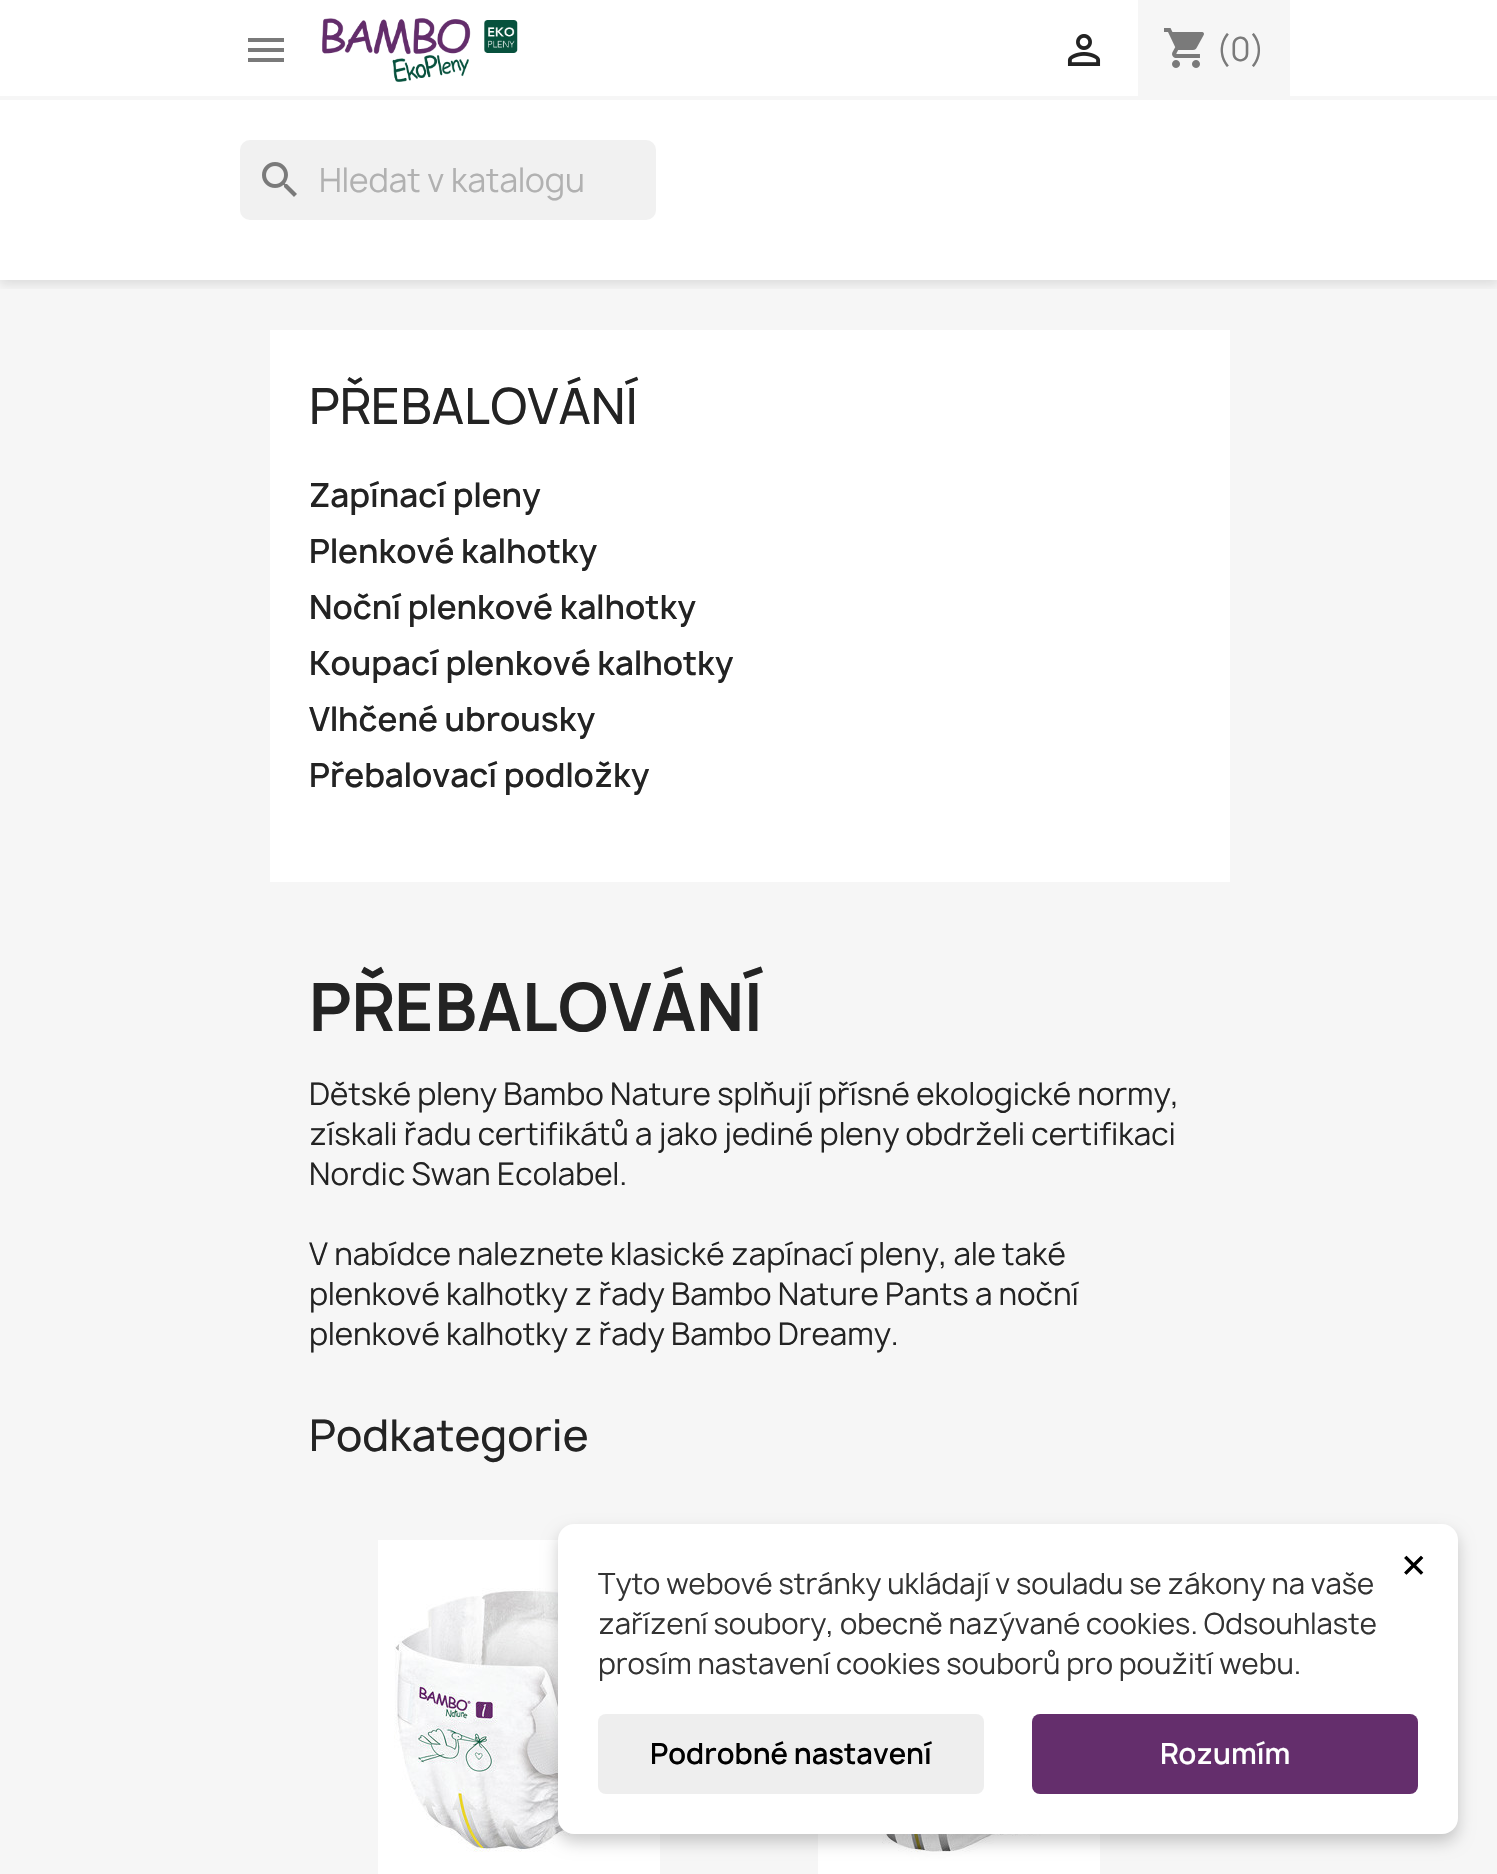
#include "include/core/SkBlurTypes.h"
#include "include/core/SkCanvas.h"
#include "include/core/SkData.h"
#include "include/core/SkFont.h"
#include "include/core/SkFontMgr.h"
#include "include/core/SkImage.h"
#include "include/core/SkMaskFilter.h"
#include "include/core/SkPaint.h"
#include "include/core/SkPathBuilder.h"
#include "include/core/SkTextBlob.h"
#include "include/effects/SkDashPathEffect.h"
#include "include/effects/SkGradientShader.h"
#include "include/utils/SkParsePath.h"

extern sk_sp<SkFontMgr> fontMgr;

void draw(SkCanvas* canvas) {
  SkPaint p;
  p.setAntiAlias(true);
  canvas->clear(SK_ColorWHITE);
  p.setColor(SkColorSetRGB(246, 246, 246));
  canvas->drawRect(SkRect::MakeLTRB(0, 280, 1497, 1874), p);
  canvas->save();
  canvas->clipRect(SkRect::MakeLTRB(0, 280, 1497, 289));
  p.setColor(SkColorSetARGB(28, 0, 0, 0));
  p.setMaskFilter(SkMaskFilter::MakeBlur(kNormal_SkBlurStyle, 5));
  canvas->drawRect(SkRect::MakeLTRB(0, 4, 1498, 284), p);
  p.setMaskFilter(nullptr);
  canvas->restore();
  p.setColor(SkColorSetRGB(246, 246, 246));
  canvas->drawRect(SkRect::MakeLTRB(0, 96, 1497, 100), p);
  p.setColor(SkColorSetRGB(122, 122, 122));
  canvas->drawPath(SkPathBuilder().moveTo(248, 38).lineTo(284, 38).lineTo(284, 42).lineTo(248, 42).close().moveTo(248, 52).lineTo(248, 48).lineTo(284, 48).lineTo(284, 52).close().moveTo(248, 62).lineTo(248, 58).lineTo(284, 58).lineTo(284, 62).close().detach(), p);
  canvas->drawImageRect(SkImages::DeferredFromEncodedData(SkData::MakeFromFileName("images/1.png")), SkRect::MakeLTRB(322, 18, 518, 82), SkSamplingOptions());
  canvas->drawImageRect(SkImages::DeferredFromEncodedData(SkData::MakeFromFileName("images/2.png")), SkRect::MakeLTRB(1067, 34, 1101, 66), SkSamplingOptions());
  p.setColor(SkColorSetRGB(246, 246, 246));
  canvas->drawRect(SkRect::MakeLTRB(1138, 0, 1290, 96), p);
  canvas->drawImageRect(SkImages::DeferredFromEncodedData(SkData::MakeFromFileName("images/3.png")), SkRect::MakeLTRB(1164, 28, 1204, 68), SkSamplingOptions());
  p.setColor(SkColorSetRGB(241, 241, 241));
  canvas->drawRoundRect(SkRect::MakeLTRB(240, 140, 656, 220), 10, 10, p);
  canvas->drawImageRect(SkImages::DeferredFromEncodedData(SkData::MakeFromFileName("images/4.png")), SkRect::MakeLTRB(262, 162, 297, 197), SkSamplingOptions());
  p.setColor(SK_ColorWHITE);
  canvas->drawRect(SkRect::MakeLTRB(270, 330, 1230, 882), p);
  canvas->drawImageRect(SkImages::DeferredFromEncodedData(SkData::MakeFromFileName("images/5.png")), SkRect::MakeLTRB(378, 1540, 660, 1874), SkSamplingOptions());
  canvas->drawImageRect(SkImages::DeferredFromEncodedData(SkData::MakeFromFileName("images/6.png")), SkRect::MakeLTRB(818, 1834, 1100, 1874), SkSamplingOptions());
  p.setColor(SkColorSetARGB(51, 0, 0, 0));
  p.setMaskFilter(SkMaskFilter::MakeBlur(kNormal_SkBlurStyle, 8));
  canvas->drawRoundRect(SkRect::MakeLTRB(558, 1532, 1458, 1842), 16, 16, p);
  p.setMaskFilter(nullptr);
  p.setColor(SK_ColorWHITE);
  canvas->drawRoundRect(SkRect::MakeLTRB(558, 1524, 1458, 1834), 16, 16, p);
  p.setColor(SkColorSetRGB(238, 238, 238));
  canvas->drawRoundRect(SkRect::MakeLTRB(598, 1714, 984, 1794), 8, 8, p);
  p.setColor(SkColorSetRGB(100, 46, 108));
  canvas->drawRoundRect(SkRect::MakeLTRB(1032, 1714, 1418, 1794), 8, 8, p);
  SkFont font1(fontMgr->matchFamilyStyle("Manrope", SkFontStyle::Normal()), 32);
  font1.setSubpixel(true);
  p.setColor(SkColorSetRGB(122, 122, 122));
  canvas->drawString("(0)", 1216, 61, font1, p);
  p.setColor(SkColorSetRGB(177, 177, 177));
  canvas->drawString("Hledat v katalogu", 319, 192, font1, p);
  SkFont font2(fontMgr->matchFamilyStyle("Manrope", SkFontStyle(500, SkFontStyle::kNormal_Width, SkFontStyle::kUpright_Slant)), 48);
  font2.setSubpixel(true);
  p.setColor(SkColorSetRGB(35, 35, 35));
  canvas->drawString("PŘEBALOVÁNÍ", 309, 424, font2, p);
  SkFont font3(fontMgr->matchFamilyStyle("Manrope", SkFontStyle(600, SkFontStyle::kNormal_Width, SkFontStyle::kUpright_Slant)), 32);
  font3.setSubpixel(true);
  canvas->drawString("Zapínací pleny", 309, 507, font3, p);
  canvas->drawString("Plenkové kalhotky", 309, 563, font3, p);
  canvas->drawString("Noční plenkové kalhotky", 309, 619, font3, p);
  canvas->drawString("Koupací plenkové kalhotky", 309, 675, font3, p);
  canvas->drawString("Vlhčené ubrousky", 309, 731, font3, p);
  canvas->drawString("Přebalovací podložky", 309, 787, font3, p);
  SkFont font4(fontMgr->matchFamilyStyle("Manrope", SkFontStyle::Bold()), 64);
  font4.setSubpixel(true);
  canvas->drawString("PŘEBALOVÁNÍ", 309, 1031, font4, p);
  SkFont font5(fontMgr->matchFamilyStyle("Manrope", SkFontStyle::Normal()), 30);
  font5.setSubpixel(true);
  canvas->drawString("Dětské pleny Bambo Nature splňují přísné ekologické normy,", 309, 1105, font5, p);
  canvas->drawString("získali řadu certifikátů a jako jediné pleny obdrželi certifikaci", 309, 1145, font5, p);
  canvas->drawString("Nordic Swan Ecolabel.", 309, 1185, font5, p);
  canvas->drawString("V nabídce naleznete klasické zapínací pleny, ale také", 309, 1265, font5, p);
  canvas->drawString("plenkové kalhotky z řady Bambo Nature Pants a noční", 309, 1305, font5, p);
  canvas->drawString("plenkové kalhotky z řady Bambo Dreamy.", 309, 1345, font5, p);
  SkFont font6(fontMgr->matchFamilyStyle("Manrope", SkFontStyle(500, SkFontStyle::kNormal_Width, SkFontStyle::kUpright_Slant)), 42);
  font6.setSubpixel(true);
  canvas->drawString("Podkategorie", 309, 1451, font6, p);
  SkFont font7(fontMgr->matchFamilyStyle("Manrope", SkFontStyle::Normal()), 50);
  font7.setSubpixel(true);
  p.setColor(SK_ColorBLACK);
  canvas->drawString("×", 1401, 1584, font7, p);
  SkFont font8(fontMgr->matchFamilyStyle("Manrope", SkFontStyle::Normal()), 28);
  font8.setSubpixel(true);
  p.setColor(SkColorSetRGB(51, 51, 51));
  canvas->drawString("Tyto webové stránky ukládají v souladu se zákony na vaše", 598, 1594, font8, p);
  canvas->drawString("zařízení soubory, obecně nazývané cookies. Odsouhlaste", 598, 1634, font8, p);
  canvas->drawString("prosím nastavení cookies souborů pro použití webu.", 598, 1674, font8, p);
  SkFont font9(fontMgr->matchFamilyStyle("Manrope", SkFontStyle(600, SkFontStyle::kNormal_Width, SkFontStyle::kUpright_Slant)), 28);
  font9.setSubpixel(true);
  p.setColor(SK_ColorBLACK);
  canvas->drawString("Podrobné nastavení", 650, 1764, font9, p);
  p.setColor(SK_ColorWHITE);
  canvas->drawString("Rozumím", 1160, 1764, font9, p);
}
